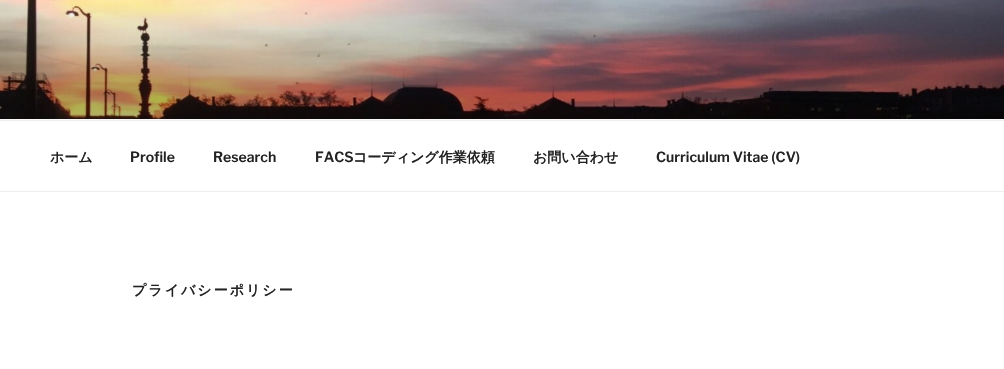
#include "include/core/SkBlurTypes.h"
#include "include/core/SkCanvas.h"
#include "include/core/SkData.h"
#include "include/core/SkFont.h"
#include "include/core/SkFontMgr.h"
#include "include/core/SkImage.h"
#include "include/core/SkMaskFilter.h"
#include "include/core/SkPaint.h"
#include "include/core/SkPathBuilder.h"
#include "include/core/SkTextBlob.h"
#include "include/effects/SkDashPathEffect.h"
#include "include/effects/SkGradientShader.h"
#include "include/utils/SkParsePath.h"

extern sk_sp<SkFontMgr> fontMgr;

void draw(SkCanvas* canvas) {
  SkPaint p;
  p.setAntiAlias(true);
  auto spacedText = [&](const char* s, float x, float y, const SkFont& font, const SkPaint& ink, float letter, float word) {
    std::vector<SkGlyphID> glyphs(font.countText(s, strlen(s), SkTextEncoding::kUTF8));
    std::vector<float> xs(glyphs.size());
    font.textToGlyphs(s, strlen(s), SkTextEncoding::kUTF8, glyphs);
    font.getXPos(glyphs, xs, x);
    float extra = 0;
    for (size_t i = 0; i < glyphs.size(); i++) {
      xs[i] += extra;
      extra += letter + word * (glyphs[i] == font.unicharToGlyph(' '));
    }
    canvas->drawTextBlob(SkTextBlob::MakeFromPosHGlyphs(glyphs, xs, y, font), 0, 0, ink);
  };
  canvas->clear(SK_ColorWHITE);
  p.setColor(SkColorSetRGB(250, 250, 250));
  canvas->drawRect(SkRect::MakeLTRB(0, 119, 1004, 120), p);
  canvas->drawImageRect(SkImages::DeferredFromEncodedData(SkData::MakeFromFileName("images/1.png")), SkRect::MakeLTRB(0, 0, 1004, 119), SkSamplingOptions());
  p.setColor(SkColorSetRGB(238, 238, 238));
  canvas->drawRect(SkRect::MakeLTRB(0, 120, 1004, 121), p);
  canvas->drawRect(SkRect::MakeLTRB(0, 191, 1004, 192), p);
  SkFont font1(fontMgr->matchFamilyStyle("WenQuanYi Zen Hei", SkFontStyle::Bold()), 14);
  font1.setSubpixel(true);
  p.setColor(SkColorSetRGB(34, 34, 34));
  canvas->drawString("ホーム", 50, 162, font1, p);
  SkFont font2(fontMgr->matchFamilyStyle("Libre Franklin", SkFontStyle(100, SkFontStyle::kNormal_Width, SkFontStyle::kUpright_Slant)), 14);
  font2.setSubpixel(true);
  canvas->drawString("Profile", 130, 162, font2, p);
  canvas->drawString("Research", 213, 162, font2, p);
  canvas->drawString("FACS", 315, 162, font2, p);
  canvas->drawString("コーディング作業依頼", 353, 162, font1, p);
  canvas->drawString("お問い合わせ", 533, 162, font1, p);
  canvas->drawString("Curriculum Vitae (CV)", 656, 162, font2, p);
  spacedText("プライバシーポリシー", 132, 295, font1, p, 2, 0);
}
